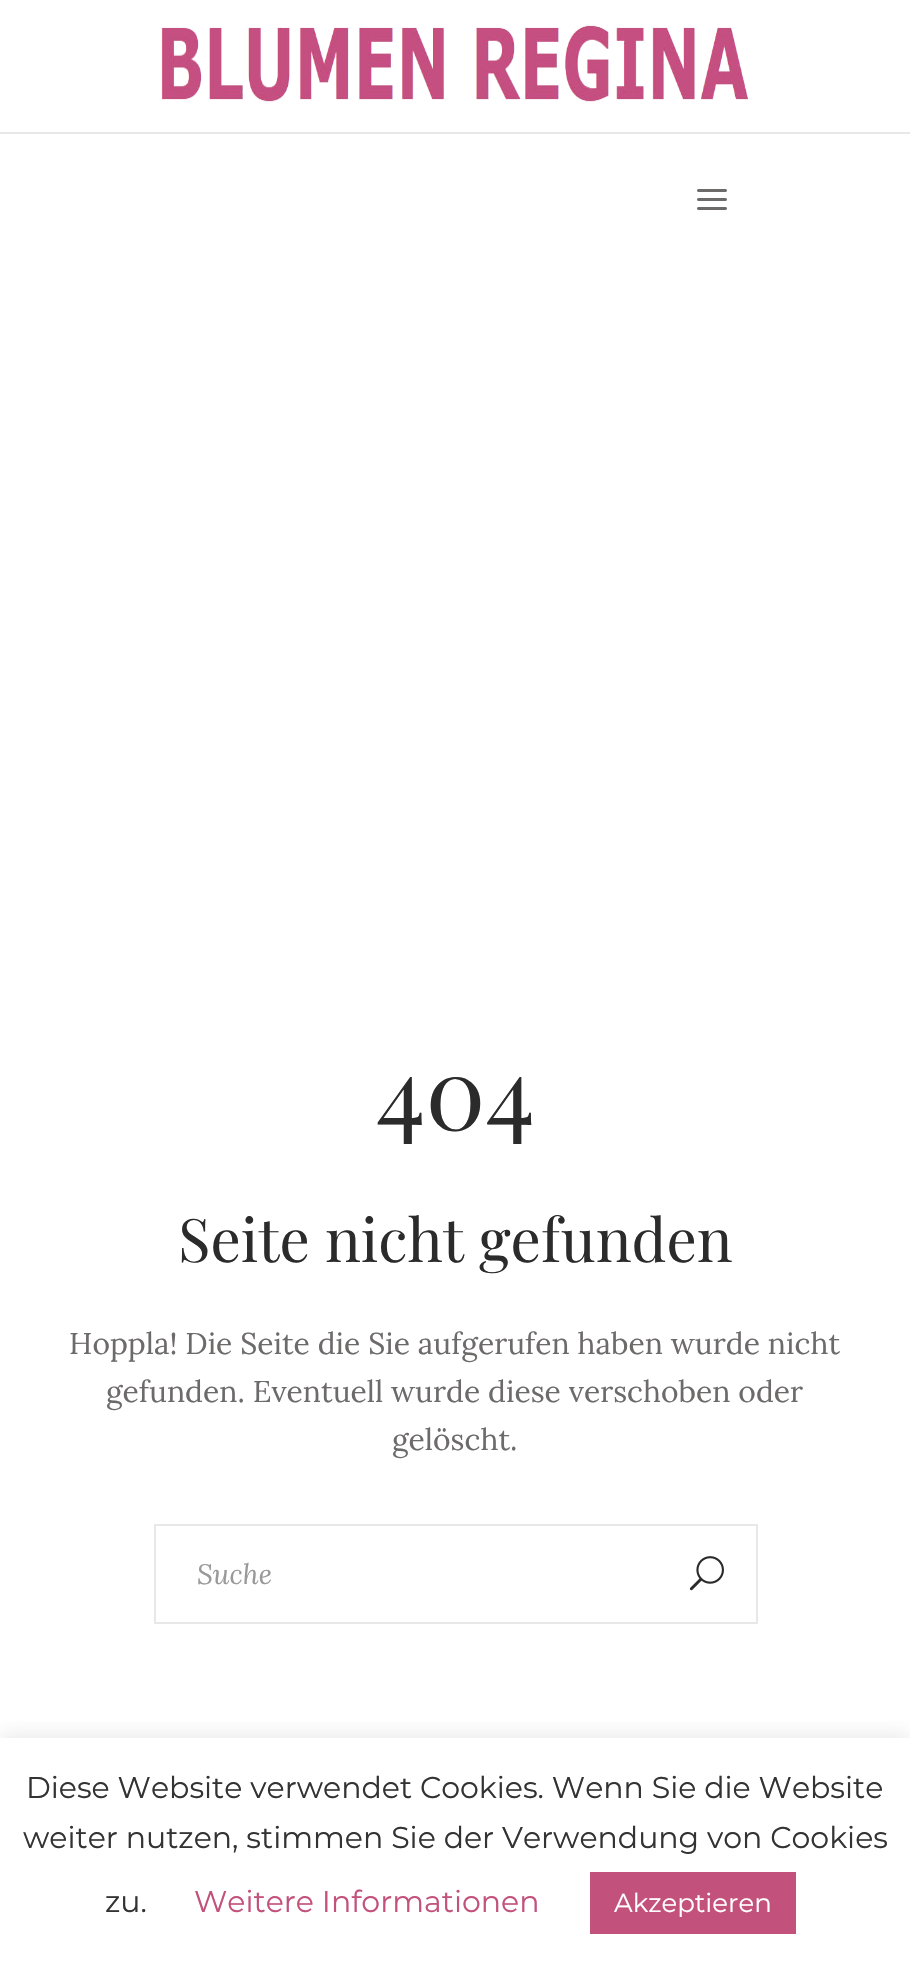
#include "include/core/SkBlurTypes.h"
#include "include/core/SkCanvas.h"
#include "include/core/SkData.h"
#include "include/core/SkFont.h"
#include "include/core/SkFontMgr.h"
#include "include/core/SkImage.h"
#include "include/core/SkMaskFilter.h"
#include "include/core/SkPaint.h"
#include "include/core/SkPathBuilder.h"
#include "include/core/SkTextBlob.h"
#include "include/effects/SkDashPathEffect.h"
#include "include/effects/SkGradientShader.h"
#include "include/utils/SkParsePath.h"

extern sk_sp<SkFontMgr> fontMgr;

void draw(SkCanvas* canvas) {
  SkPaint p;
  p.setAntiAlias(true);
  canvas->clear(SK_ColorWHITE);
  p.setColor(SkColorSetRGB(232, 232, 232));
  canvas->drawRect(SkRect::MakeLTRB(0, 132, 910, 134), p);
  canvas->drawImageRect(SkImages::DeferredFromEncodedData(SkData::MakeFromFileName("images/1.png")), SkRect::MakeLTRB(161, 25, 748, 102), SkSamplingOptions());
  canvas->drawImageRect(SkImages::DeferredFromEncodedData(SkData::MakeFromFileName("images/2.png")), SkRect::MakeLTRB(697, 189, 727, 210), SkSamplingOptions());
  p.setStyle(SkPaint::kStroke_Style);
  p.setStrokeWidth(2);
  canvas->drawRect(SkRect::MakeLTRB(155, 1525, 757, 1623), p);
  canvas->drawImageRect(SkImages::DeferredFromEncodedData(SkData::MakeFromFileName("images/3.png")), SkRect::MakeLTRB(689, 1556, 724, 1591), SkSamplingOptions());
  canvas->save();
  canvas->clipRect(SkRect::MakeLTRB(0, 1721, 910, 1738));
  p.setStyle(SkPaint::kFill_Style);
  p.setColor(SkColorSetARGB(77, 172, 171, 171));
  p.setMaskFilter(SkMaskFilter::MakeBlur(kNormal_SkBlurStyle, 10));
  canvas->drawRect(SkRect::MakeLTRB(0, 1736, 910, 1966), p);
  p.setMaskFilter(nullptr);
  canvas->restore();
  p.setColor(SkColorSetRGB(194, 81, 124));
  canvas->drawRect(SkRect::MakeLTRB(590, 1872, 796, 1934), p);
  SkFont font1(fontMgr->matchFamilyStyle("Playfair Display", SkFontStyle::Normal()), 100);
  font1.setSubpixel(true);
  p.setColor(SkColorSetRGB(43, 43, 43));
  canvas->drawString("404", 376, 1130, font1, p);
  SkFont font2(fontMgr->matchFamilyStyle("Playfair Display", SkFontStyle::Normal()), 60);
  font2.setSubpixel(true);
  canvas->drawString("Seite nicht gefunden", 178, 1262, font2, p);
  SkFont font3(fontMgr->matchFamilyStyle("Lora", SkFontStyle::Normal()), 30);
  font3.setSubpixel(true);
  p.setColor(SkColorSetRGB(109, 106, 106));
  canvas->drawString("Hoppla! Die Seite die Sie aufgerufen haben wurde nicht", 69, 1354, font3, p);
  canvas->drawString("gefunden. Eventuell wurde diese verschoben oder", 106, 1402, font3, p);
  canvas->drawString("gelöscht.", 392, 1450, font3, p);
  SkFont font4(fontMgr->matchFamilyStyle("Lora", SkFontStyle::Italic()), 28);
  font4.setSubpixel(true);
  p.setColor(SkColorSetRGB(153, 153, 153));
  canvas->drawString("Suche", 197, 1584, font4, p);
  SkFont font5(fontMgr->matchFamilyStyle("Montserrat", SkFontStyle::Normal()), 30);
  font5.setSubpixel(true);
  p.setColor(SkColorSetRGB(51, 51, 51));
  canvas->drawString("Diese Website verwendet Cookies. Wenn Sie die Website", 26, 1798, font5, p);
  canvas->drawString("weiter nutzen, stimmen Sie der Verwendung von Cookies", 23, 1848, font5, p);
  canvas->drawString("zu.", 105, 1912, font5, p);
  p.setColor(SkColorSetRGB(194, 81, 124));
  canvas->drawString("Weitere Informationen", 194, 1912, font5, p);
  SkFont font6(fontMgr->matchFamilyStyle("Montserrat", SkFontStyle::Normal()), 26);
  font6.setSubpixel(true);
  p.setColor(SK_ColorWHITE);
  canvas->drawString("Akzeptieren", 614, 1912, font6, p);
}
